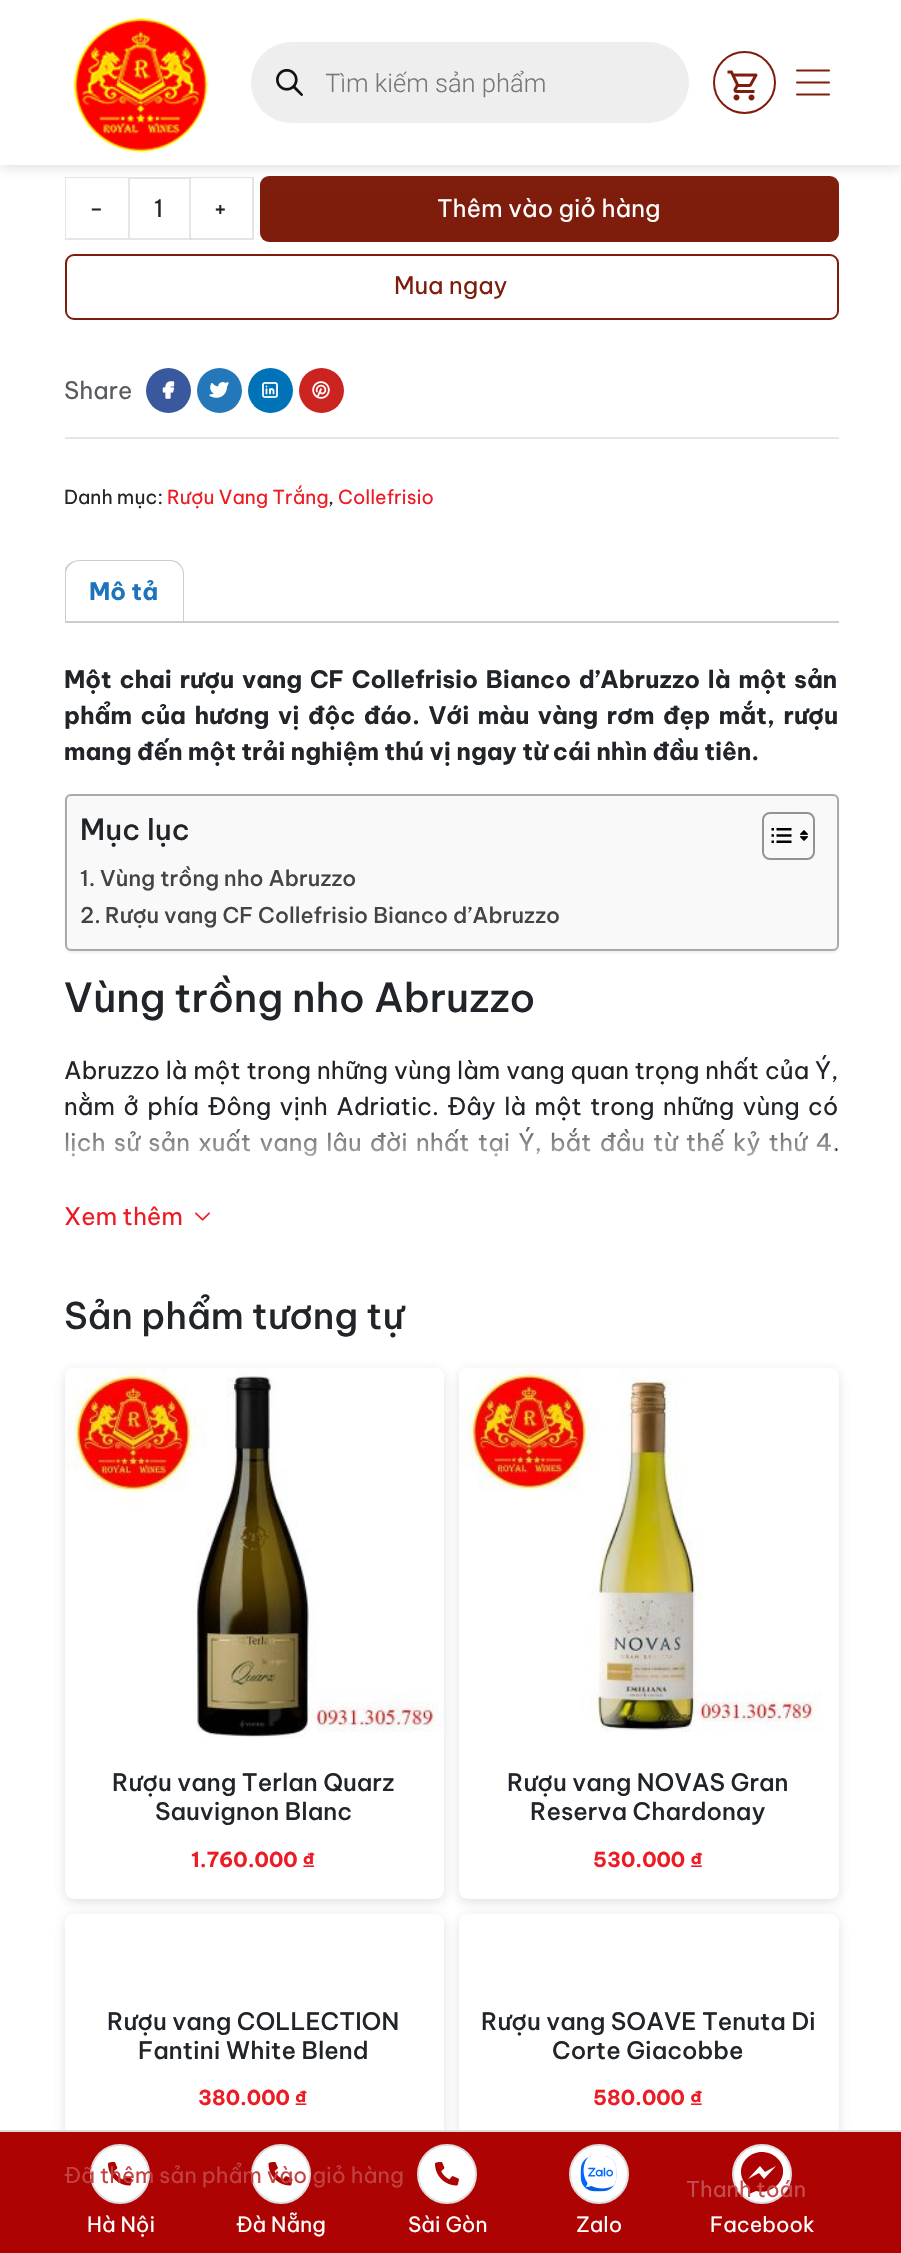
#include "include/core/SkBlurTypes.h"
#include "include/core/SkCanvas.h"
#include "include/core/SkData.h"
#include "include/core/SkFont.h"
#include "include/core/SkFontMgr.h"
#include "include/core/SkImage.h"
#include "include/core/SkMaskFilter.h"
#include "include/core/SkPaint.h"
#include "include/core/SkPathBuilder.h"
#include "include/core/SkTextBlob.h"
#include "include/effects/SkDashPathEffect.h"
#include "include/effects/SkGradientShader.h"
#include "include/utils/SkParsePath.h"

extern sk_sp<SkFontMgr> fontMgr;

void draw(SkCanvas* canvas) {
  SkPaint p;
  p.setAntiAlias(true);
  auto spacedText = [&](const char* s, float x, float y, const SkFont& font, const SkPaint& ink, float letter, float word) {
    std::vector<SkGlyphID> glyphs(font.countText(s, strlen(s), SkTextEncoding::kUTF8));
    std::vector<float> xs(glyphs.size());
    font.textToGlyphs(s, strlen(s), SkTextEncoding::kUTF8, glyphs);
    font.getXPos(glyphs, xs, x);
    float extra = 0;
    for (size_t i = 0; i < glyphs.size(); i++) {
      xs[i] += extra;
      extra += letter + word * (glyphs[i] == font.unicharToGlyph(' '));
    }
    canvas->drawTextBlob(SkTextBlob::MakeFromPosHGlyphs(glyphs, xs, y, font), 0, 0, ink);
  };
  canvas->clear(SK_ColorWHITE);
  p.setColor(SkColorSetRGB(230, 230, 230));
  canvas->drawPath(SkPathBuilder().moveTo(64, 177).lineTo(128, 177).lineTo(128, 178).lineTo(66, 178).close().moveTo(128, 240).lineTo(64, 240).lineTo(66, 238).lineTo(128, 238).close().detach(), p);
  canvas->save();
  canvas->clipRect(SkRect::MakeLTRB(65, 0, 839, 512));
  canvas->drawPath(SkPathBuilder().moveTo(64, 240).lineTo(64, 177).lineTo(66, 178).lineTo(66, 238).close().detach(), p);
  canvas->restore();
  p.setStyle(SkPaint::kStroke_Style);
  p.setStrokeWidth(2);
  canvas->drawRect(SkRect::MakeLTRB(129, 178, 190, 239), p);
  p.setStyle(SkPaint::kFill_Style);
  p.setColor(SkColorSetARGB(26, 0, 0, 0));
  canvas->drawPath(SkPathBuilder().moveTo(190, 177).lineTo(254, 177).lineTo(252, 178).lineTo(190, 178).close().detach(), p);
  canvas->drawPath(SkPathBuilder().moveTo(254, 177).lineTo(254, 240).lineTo(252, 238).lineTo(252, 178).close().detach(), p);
  p.setColor(SkColorSetRGB(126, 29, 12));
  canvas->drawRoundRect(SkRect::MakeLTRB(260, 176, 839, 242), 9, 9, p);
  p.setColor(SkColorSetARGB(51, 99, 99, 99));
  p.setMaskFilter(SkMaskFilter::MakeBlur(kNormal_SkBlurStyle, 6));
  canvas->drawRect(SkRect::MakeLTRB(0, 3, 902, 168), p);
  p.setMaskFilter(nullptr);
  p.setColor(SK_ColorWHITE);
  canvas->drawRect(SkRect::MakeLTRB(0, 0, 901, 165), p);
  canvas->drawImageRect(SkImages::DeferredFromEncodedData(SkData::MakeFromFileName("images/1.png")), SkRect::MakeLTRB(73, 17, 209, 154), SkSamplingOptions());
  p.setColor(SkColorSetRGB(238, 238, 238));
  canvas->drawRoundRect(SkRect::MakeLTRB(251, 42, 689, 123), 40.5f, 40.5f, p);
  canvas->drawImageRect(SkImages::DeferredFromEncodedData(SkData::MakeFromFileName("images/2.png")), SkRect::MakeLTRB(276, 69, 303, 96), SkSamplingOptions());
  p.setStyle(SkPaint::kStroke_Style);
  p.setColor(SkColorSetRGB(126, 29, 12));
  canvas->drawCircle(744.5f, 82.5f, 30.5f, p);
  canvas->drawImageRect(SkImages::DeferredFromEncodedData(SkData::MakeFromFileName("images/3.png")), SkRect::MakeLTRB(727, 70, 758, 101), SkSamplingOptions());
  p.setStrokeCap(SkPaint::kRound_Cap);
  p.setStrokeJoin(SkPaint::kRound_Join);
  canvas->drawPath(SkPathBuilder().moveTo(797, 70.5f).lineTo(829, 70.5f).moveTo(797, 82.5f).lineTo(829, 82.5f).moveTo(797, 94.5f).lineTo(829, 94.5f).detach(), p);
  p.setStyle(SkPaint::kFill_Style);
  p.setColor(SkColorSetARGB(26, 0, 0, 0));
  canvas->drawPath(SkPathBuilder().moveTo(254, 240).lineTo(190, 240).lineTo(190, 238).lineTo(252, 238).close().detach(), p);
  p.setStyle(SkPaint::kStroke_Style);
  p.setStrokeCap(SkPaint::kButt_Cap);
  p.setStrokeJoin(SkPaint::kMiter_Join);
  p.setColor(SkColorSetRGB(126, 29, 12));
  canvas->drawRoundRect(SkRect::MakeLTRB(66, 255, 838, 319), 8, 8, p);
  p.setStyle(SkPaint::kFill_Style);
  p.setColor(SkColorSetRGB(58, 88, 157));
  canvas->drawCircle(168.5f, 390.5f, 22.5f, p);
  canvas->drawImageRect(SkImages::DeferredFromEncodedData(SkData::MakeFromFileName("images/4.png")), SkRect::MakeLTRB(162, 381, 175, 399), SkSamplingOptions());
  p.setColor(SkColorSetRGB(36, 120, 186));
  canvas->drawCircle(219.5f, 390.5f, 22.5f, p);
  canvas->drawImageRect(SkImages::DeferredFromEncodedData(SkData::MakeFromFileName("images/5.png")), SkRect::MakeLTRB(209, 382, 229, 398), SkSamplingOptions());
  p.setColor(SkColorSetRGB(0, 114, 183));
  canvas->drawCircle(270.5f, 390.5f, 22.5f, p);
  canvas->drawImageRect(SkImages::DeferredFromEncodedData(SkData::MakeFromFileName("images/6.png")), SkRect::MakeLTRB(262, 382, 278, 398), SkSamplingOptions());
  p.setColor(SkColorSetRGB(203, 35, 32));
  canvas->drawCircle(321.5f, 390.5f, 22.5f, p);
  canvas->drawImageRect(SkImages::DeferredFromEncodedData(SkData::MakeFromFileName("images/7.png")), SkRect::MakeLTRB(312, 381, 330, 399), SkSamplingOptions());
  p.setColor(SkColorSetRGB(230, 230, 230));
  canvas->drawRect(SkRect::MakeLTRB(65, 437, 839, 439), p);
  p.setColor(SkColorSetRGB(204, 204, 204));
  canvas->drawRect(SkRect::MakeLTRB(65, 621, 839, 623), p);
  canvas->save();
  canvas->clipRect(SkRect::MakeLTRB(65, 560, 839, 621));
  canvas->drawPath(SkPathBuilder(SkPathFillType::kEvenOdd).moveTo(80, 560).lineTo(170, 560).cubicTo(178, 560, 184, 566, 184, 574).lineTo(184, 621).lineTo(64, 621).lineTo(64, 574).cubicTo(64, 566, 71, 560, 80, 560).close().moveTo(80, 561).lineTo(170, 561).cubicTo(177, 561, 183, 567, 183, 574).lineTo(183, 621).lineTo(66, 621).lineTo(66, 574).cubicTo(66, 567, 72, 561, 80, 561).close().detach(), p);
  canvas->restore();
  p.setColor(SkColorSetARGB(13, 0, 0, 0));
  p.setMaskFilter(SkMaskFilter::MakeBlur(kNormal_SkBlurStyle, 1));
  canvas->drawRoundRect(SkRect::MakeLTRB(65, 795, 839, 953), 6, 6, p);
  p.setMaskFilter(nullptr);
  p.setColor(SkColorSetRGB(249, 249, 249));
  canvas->drawRoundRect(SkRect::MakeLTRB(66, 795, 838, 950), 5, 5, p);
  p.setStyle(SkPaint::kStroke_Style);
  p.setColor(SkColorSetRGB(170, 170, 170));
  canvas->drawRoundRect(SkRect::MakeLTRB(66, 795, 838, 950), 5, 5, p);
  p.setColor(SkColorSetRGB(153, 145, 145));
  canvas->drawRoundRect(SkRect::MakeLTRB(763, 813, 814, 859), 7, 7, p);
  canvas->drawImageRect(SkImages::DeferredFromEncodedData(SkData::MakeFromFileName("images/8.png")), SkRect::MakeLTRB(771, 828, 792, 843), SkSamplingOptions());
  canvas->drawImageRect(SkImages::DeferredFromEncodedData(SkData::MakeFromFileName("images/9.png")), SkRect::MakeLTRB(800, 830, 808, 841), SkSamplingOptions());
  canvas->drawImageRect(SkImages::DeferredFromEncodedData(SkData::MakeFromFileName("images/10.png")), SkRect::MakeLTRB(195, 1212, 210, 1221), SkSamplingOptions());
  canvas->save();
  canvas->clipPath(SkPathBuilder(SkPathFillType::kEvenOdd).moveTo(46, 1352).lineTo(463, 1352).lineTo(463, 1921).lineTo(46, 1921).close().moveTo(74, 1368).lineTo(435, 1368).cubicTo(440, 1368, 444, 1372, 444, 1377).lineTo(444, 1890).cubicTo(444, 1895, 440, 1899, 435, 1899).lineTo(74, 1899).cubicTo(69, 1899, 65, 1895, 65, 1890).lineTo(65, 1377).cubicTo(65, 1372, 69, 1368, 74, 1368).close().detach(), true);
  p.setStyle(SkPaint::kFill_Style);
  p.setColor(SkColorSetARGB(51, 99, 99, 99));
  p.setMaskFilter(SkMaskFilter::MakeBlur(kNormal_SkBlurStyle, 6));
  canvas->drawRoundRect(SkRect::MakeLTRB(65, 1371, 444, 1902), 9, 9, p);
  p.setMaskFilter(nullptr);
  canvas->restore();
  canvas->drawImageRect(SkImages::DeferredFromEncodedData(SkData::MakeFromFileName("images/11.png")), SkRect::MakeLTRB(65, 1368, 444, 1739), SkSamplingOptions());
  canvas->save();
  canvas->clipPath(SkPathBuilder(SkPathFillType::kEvenOdd).moveTo(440, 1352).lineTo(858, 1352).lineTo(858, 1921).lineTo(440, 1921).close().moveTo(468, 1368).lineTo(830, 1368).cubicTo(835, 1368, 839, 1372, 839, 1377).lineTo(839, 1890).cubicTo(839, 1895, 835, 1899, 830, 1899).lineTo(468, 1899).cubicTo(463, 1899, 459, 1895, 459, 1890).lineTo(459, 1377).cubicTo(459, 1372, 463, 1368, 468, 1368).close().detach(), true);
  p.setMaskFilter(SkMaskFilter::MakeBlur(kNormal_SkBlurStyle, 6));
  canvas->drawRoundRect(SkRect::MakeLTRB(459, 1371, 839, 1902), 9, 9, p);
  p.setMaskFilter(nullptr);
  canvas->restore();
  canvas->drawImageRect(SkImages::DeferredFromEncodedData(SkData::MakeFromFileName("images/12.png")), SkRect::MakeLTRB(459, 1368, 823, 1732), SkSamplingOptions());
  canvas->save();
  canvas->clipPath(SkPathBuilder(SkPathFillType::kEvenOdd).moveTo(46, 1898).lineTo(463, 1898).lineTo(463, 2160).lineTo(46, 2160).close().moveTo(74, 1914).lineTo(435, 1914).cubicTo(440, 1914, 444, 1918, 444, 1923).lineTo(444, 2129).cubicTo(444, 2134, 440, 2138, 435, 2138).lineTo(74, 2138).cubicTo(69, 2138, 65, 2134, 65, 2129).lineTo(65, 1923).cubicTo(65, 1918, 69, 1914, 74, 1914).close().detach(), true);
  p.setMaskFilter(SkMaskFilter::MakeBlur(kNormal_SkBlurStyle, 6));
  canvas->drawRoundRect(SkRect::MakeLTRB(65, 1917, 444, 2141), 9, 9, p);
  p.setMaskFilter(nullptr);
  canvas->restore();
  canvas->save();
  canvas->clipPath(SkPathBuilder(SkPathFillType::kEvenOdd).moveTo(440, 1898).lineTo(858, 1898).lineTo(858, 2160).lineTo(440, 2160).close().moveTo(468, 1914).lineTo(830, 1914).cubicTo(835, 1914, 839, 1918, 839, 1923).lineTo(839, 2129).cubicTo(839, 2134, 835, 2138, 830, 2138).lineTo(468, 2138).cubicTo(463, 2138, 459, 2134, 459, 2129).lineTo(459, 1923).cubicTo(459, 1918, 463, 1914, 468, 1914).close().detach(), true);
  p.setMaskFilter(SkMaskFilter::MakeBlur(kNormal_SkBlurStyle, 6));
  canvas->drawRoundRect(SkRect::MakeLTRB(459, 1917, 839, 2141), 9, 9, p);
  p.setMaskFilter(nullptr);
  canvas->restore();
  p.setColor(SkColorSetRGB(174, 3, 3));
  canvas->drawRect(SkRect::MakeLTRB(0, 2132, 901, 2253), p);
  p.setColor(SkColorSetRGB(221, 221, 221));
  canvas->drawRect(SkRect::MakeLTRB(0, 2130, 901, 2132), p);
  p.setColor(SK_ColorWHITE);
  canvas->drawCircle(120, 2174, 29, p);
  p.setStyle(SkPaint::kStroke_Style);
  p.setColor(SkColorSetRGB(221, 221, 221));
  canvas->drawCircle(120, 2174, 29, p);
  canvas->drawImageRect(SkImages::DeferredFromEncodedData(SkData::MakeFromFileName("images/13.png")), SkRect::MakeLTRB(108, 2162, 132, 2186), SkSamplingOptions());
  p.setStyle(SkPaint::kFill_Style);
  p.setColor(SK_ColorWHITE);
  canvas->drawCircle(281, 2174, 29, p);
  p.setStyle(SkPaint::kStroke_Style);
  p.setColor(SkColorSetRGB(221, 221, 221));
  canvas->drawCircle(281, 2174, 29, p);
  canvas->drawImageRect(SkImages::DeferredFromEncodedData(SkData::MakeFromFileName("images/14.png")), SkRect::MakeLTRB(268, 2162, 293, 2186), SkSamplingOptions());
  p.setStyle(SkPaint::kFill_Style);
  p.setColor(SK_ColorWHITE);
  canvas->drawCircle(447, 2174, 29, p);
  p.setStyle(SkPaint::kStroke_Style);
  p.setColor(SkColorSetRGB(221, 221, 221));
  canvas->drawCircle(447, 2174, 29, p);
  canvas->drawImageRect(SkImages::DeferredFromEncodedData(SkData::MakeFromFileName("images/13.png")), SkRect::MakeLTRB(435, 2162, 459, 2186), SkSamplingOptions());
  p.setStyle(SkPaint::kFill_Style);
  p.setColor(SK_ColorWHITE);
  canvas->drawCircle(599, 2174, 29, p);
  p.setStyle(SkPaint::kStroke_Style);
  p.setColor(SkColorSetRGB(221, 221, 221));
  canvas->drawCircle(599, 2174, 29, p);
  canvas->drawImageRect(SkImages::DeferredFromEncodedData(SkData::MakeFromFileName("images/15.png")), SkRect::MakeLTRB(580, 2156, 617, 2192), SkSamplingOptions());
  p.setStyle(SkPaint::kFill_Style);
  p.setColor(SK_ColorWHITE);
  canvas->drawCircle(762, 2174, 29, p);
  p.setStyle(SkPaint::kStroke_Style);
  p.setColor(SkColorSetRGB(221, 221, 221));
  canvas->drawCircle(762, 2174, 29, p);
  canvas->save();
  canvas->clipRect(SkRect::MakeLTRB(741, 2138, 783, 2210));
  p.setStyle(SkPaint::kFill_Style);
  p.setColor(SkColorSetRGB(174, 3, 3));
  canvas->drawPath(SkPathBuilder().moveTo(762, 2152).cubicTo(743, 2152, 733, 2175, 749, 2187).lineTo(749, 2194).lineTo(756, 2191).cubicTo(775, 2196, 793, 2173, 777, 2158).cubicTo(773, 2154, 767, 2152, 762, 2152).close().moveTo(764, 2179).lineTo(759, 2173).lineTo(748, 2179).lineTo(760, 2166).lineTo(765, 2172).lineTo(776, 2166).close().detach(), p);
  canvas->restore();
  canvas->save();
  canvas->clipRect(SkRect::MakeLTRB(326, 68, 650, 98));
  SkFont font1(fontMgr->matchFamilyStyle("Roboto", SkFontStyle(300, SkFontStyle::kNormal_Width, SkFontStyle::kUpright_Slant)), 25.5f);
  font1.setSubpixel(true);
  p.setColor(SkColorSetRGB(119, 119, 119));
  canvas->drawString("Tìm kiếm sản phẩm", 325, 92, font1, p);
  canvas->restore();
  SkFont font2(fontMgr->matchFamilyStyle("Be Vietnam Pro", SkFontStyle::Normal()), 24);
  font2.setSubpixel(true);
  p.setColor(SkColorSetRGB(33, 37, 41));
  canvas->drawString("-", 89, 217, font2, p);
  canvas->drawString("1", 154, 217, font2, p);
  canvas->drawString("+", 213, 217, font2, p);
  p.setColor(SK_ColorWHITE);
  canvas->drawString("Thêm vào giỏ hàng", 437, 217, font2, p);
  p.setColor(SkColorSetRGB(126, 29, 12));
  canvas->drawString("Mua ngay", 394, 294, font2, p);
  p.setColor(SkColorSetRGB(89, 92, 95));
  canvas->drawString("Share", 64, 399, font2, p);
  SkFont font3(fontMgr->matchFamilyStyle("Be Vietnam Pro", SkFontStyle::Normal()), 19.25f);
  font3.setSubpixel(true);
  p.setColor(SkColorSetRGB(33, 37, 41));
  canvas->drawString("Danh mục:", 64, 504, font3, p);
  p.setColor(SkColorSetRGB(237, 28, 36));
  canvas->drawString("Rượu Vang Trắng", 167, 504, font3, p);
  p.setColor(SkColorSetRGB(33, 37, 41));
  canvas->drawString(",", 328, 504, font3, p);
  p.setColor(SkColorSetRGB(237, 28, 36));
  canvas->drawString("Collefrisio", 338, 504, font3, p);
  SkFont font4(fontMgr->matchFamilyStyle("Be Vietnam Pro", SkFontStyle::Bold()), 24);
  font4.setSubpixel(true);
  p.setColor(SkColorSetRGB(30, 115, 190));
  canvas->drawString("Mô tả", 89, 600, font4, p);
  p.setColor(SkColorSetRGB(33, 37, 41));
  spacedText("Một chai rượu vang CF Collefrisio Bianco d’Abruzzo là một sản", 64, 688, font4, p, 0, 2.25f);
  spacedText("phẩm của hương vị độc đáo. Với màu vàng rơm đẹp mắt, rượu", 64, 724, font4, p, 0, 3);
  canvas->drawString("mang đến một trải nghiệm thú vị ngay từ cái nhìn đầu tiên.", 64, 760, font4, p);
  SkFont font5(fontMgr->matchFamilyStyle("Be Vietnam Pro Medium", SkFontStyle(500, SkFontStyle::kNormal_Width, SkFontStyle::kUpright_Slant)), 29);
  font5.setSubpixel(true);
  canvas->drawString("Mục lục", 80, 840, font5, p);
  SkFont font6(fontMgr->matchFamilyStyle("Be Vietnam Pro Medium", SkFontStyle(500, SkFontStyle::kNormal_Width, SkFontStyle::kUpright_Slant)), 21.7f);
  font6.setSubpixel(true);
  p.setColor(SkColorSetRGB(68, 68, 68));
  canvas->drawString("1.", 80, 886, font6, p);
  canvas->drawString("Vùng trồng nho Abruzzo", 100, 886, font6, p);
  canvas->drawString("2.", 80, 923, font6, p);
  canvas->drawString("Rượu vang CF Collefrisio Bianco d’Abruzzo", 105, 923, font6, p);
  SkFont font7(fontMgr->matchFamilyStyle("Be Vietnam Pro Medium", SkFontStyle(500, SkFontStyle::kNormal_Width, SkFontStyle::kUpright_Slant)), 39.9f);
  font7.setSubpixel(true);
  p.setColor(SkColorSetRGB(33, 37, 41));
  canvas->drawString("Vùng trồng nho Abruzzo", 64, 1012, font7, p);
  spacedText("Abruzzo là một trong những vùng làm vang quan trọng nhất của Ý,", 64, 1079, font2, p, 0, 0.4f);
  spacedText("nằm ở phía Đông vịnh Adriatic. Đây là một trong những vùng có", 64, 1115, font2, p, 0, 2.9f);
  spacedText("lịch sử sản xuất vang lâu đời nhất tại Ý, bắt đầu từ thế kỷ thứ 4.", 64, 1151, font2, p, 0, 2.75f);
  {
    const SkColor colors[] = {SkColorSetARGB(64, 255, 255, 255), SK_ColorWHITE};
    const float stops[] = {0, 1};
    const SkPoint ends[] = {{452, 1127}, {452, 1187}};
    p.setShader(SkGradientShader::MakeLinear(ends, colors, stops, 2, SkTileMode::kClamp));
    p.setAlpha(255);
  }
  canvas->drawRect(SkRect::MakeLTRB(65, 1127, 836, 1157), p);
  p.setShader(nullptr);
  p.setColor(SkColorSetRGB(237, 28, 36));
  canvas->drawString("Xem thêm", 64, 1225, font2, p);
  SkFont font8(fontMgr->matchFamilyStyle("Be Vietnam Pro Medium", SkFontStyle(500, SkFontStyle::kNormal_Width, SkFontStyle::kUpright_Slant)), 36.6f);
  font8.setSubpixel(true);
  p.setColor(SkColorSetRGB(33, 37, 41));
  canvas->drawString("Sản phẩm tương tự", 64, 1329, font8, p);
  SkFont font9(fontMgr->matchFamilyStyle("Be Vietnam Pro Medium", SkFontStyle(500, SkFontStyle::kNormal_Width, SkFontStyle::kUpright_Slant)), 24);
  font9.setSubpixel(true);
  canvas->drawString("Rượu vang Terlan Quarz", 112, 1791, font9, p);
  canvas->drawString("Sauvignon Blanc", 155, 1820, font9, p);
  SkFont font10(fontMgr->matchFamilyStyle("Be Vietnam Pro", SkFontStyle::Bold()), 20.5f);
  font10.setSubpixel(true);
  p.setColor(SkColorSetRGB(237, 28, 36));
  canvas->drawString("1.760.000 ₫", 191, 1867, font10, p);
  p.setColor(SkColorSetRGB(33, 37, 41));
  canvas->drawString("Rượu vang NOVAS Gran", 507, 1791, font9, p);
  canvas->drawString("Reserva Chardonay", 530, 1820, font9, p);
  p.setColor(SkColorSetRGB(237, 28, 36));
  canvas->drawString("530.000 ₫", 593, 1867, font10, p);
  p.setColor(SkColorSetRGB(33, 37, 41));
  canvas->drawString("Rượu vang COLLECTION", 107, 2030, font9, p);
  canvas->drawString("Fantini White Blend", 138, 2059, font9, p);
  p.setColor(SkColorSetRGB(237, 28, 36));
  canvas->drawString("380.000 ₫", 198, 2105, font10, p);
  p.setColor(SkColorSetRGB(33, 37, 41));
  canvas->drawString("Rượu vang SOAVE Tenuta Di", 481, 2030, font9, p);
  canvas->drawString("Corte Giacobbe", 552, 2059, font9, p);
  p.setColor(SkColorSetRGB(237, 28, 36));
  canvas->drawString("580.000 ₫", 593, 2105, font10, p);
  SkFont font11(fontMgr->matchFamilyStyle("Be Vietnam Pro", SkFontStyle::Normal()), 21.6f);
  font11.setSubpixel(true);
  p.setColor(SkColorSetRGB(194, 66, 66));
  canvas->drawString("Đã thêm sản phẩm vào giỏ hàng", 64, 2183, font11, p);
  p.setColor(SkColorSetRGB(197, 77, 77));
  canvas->drawString("Thanh toán", 686, 2197, font11, p);
  SkFont font12(fontMgr->matchFamilyStyle("Be Vietnam Pro", SkFontStyle::Normal()), 21);
  font12.setSubpixel(true);
  p.setColor(SK_ColorWHITE);
  canvas->drawString("Hà Nội", 87, 2232, font12, p);
  canvas->drawString("Đà Nẵng", 236, 2232, font12, p);
  canvas->drawString("Sài Gòn", 408, 2232, font12, p);
  canvas->drawString("Zalo", 576, 2232, font12, p);
  canvas->drawString("Facebook", 710, 2232, font12, p);
}
